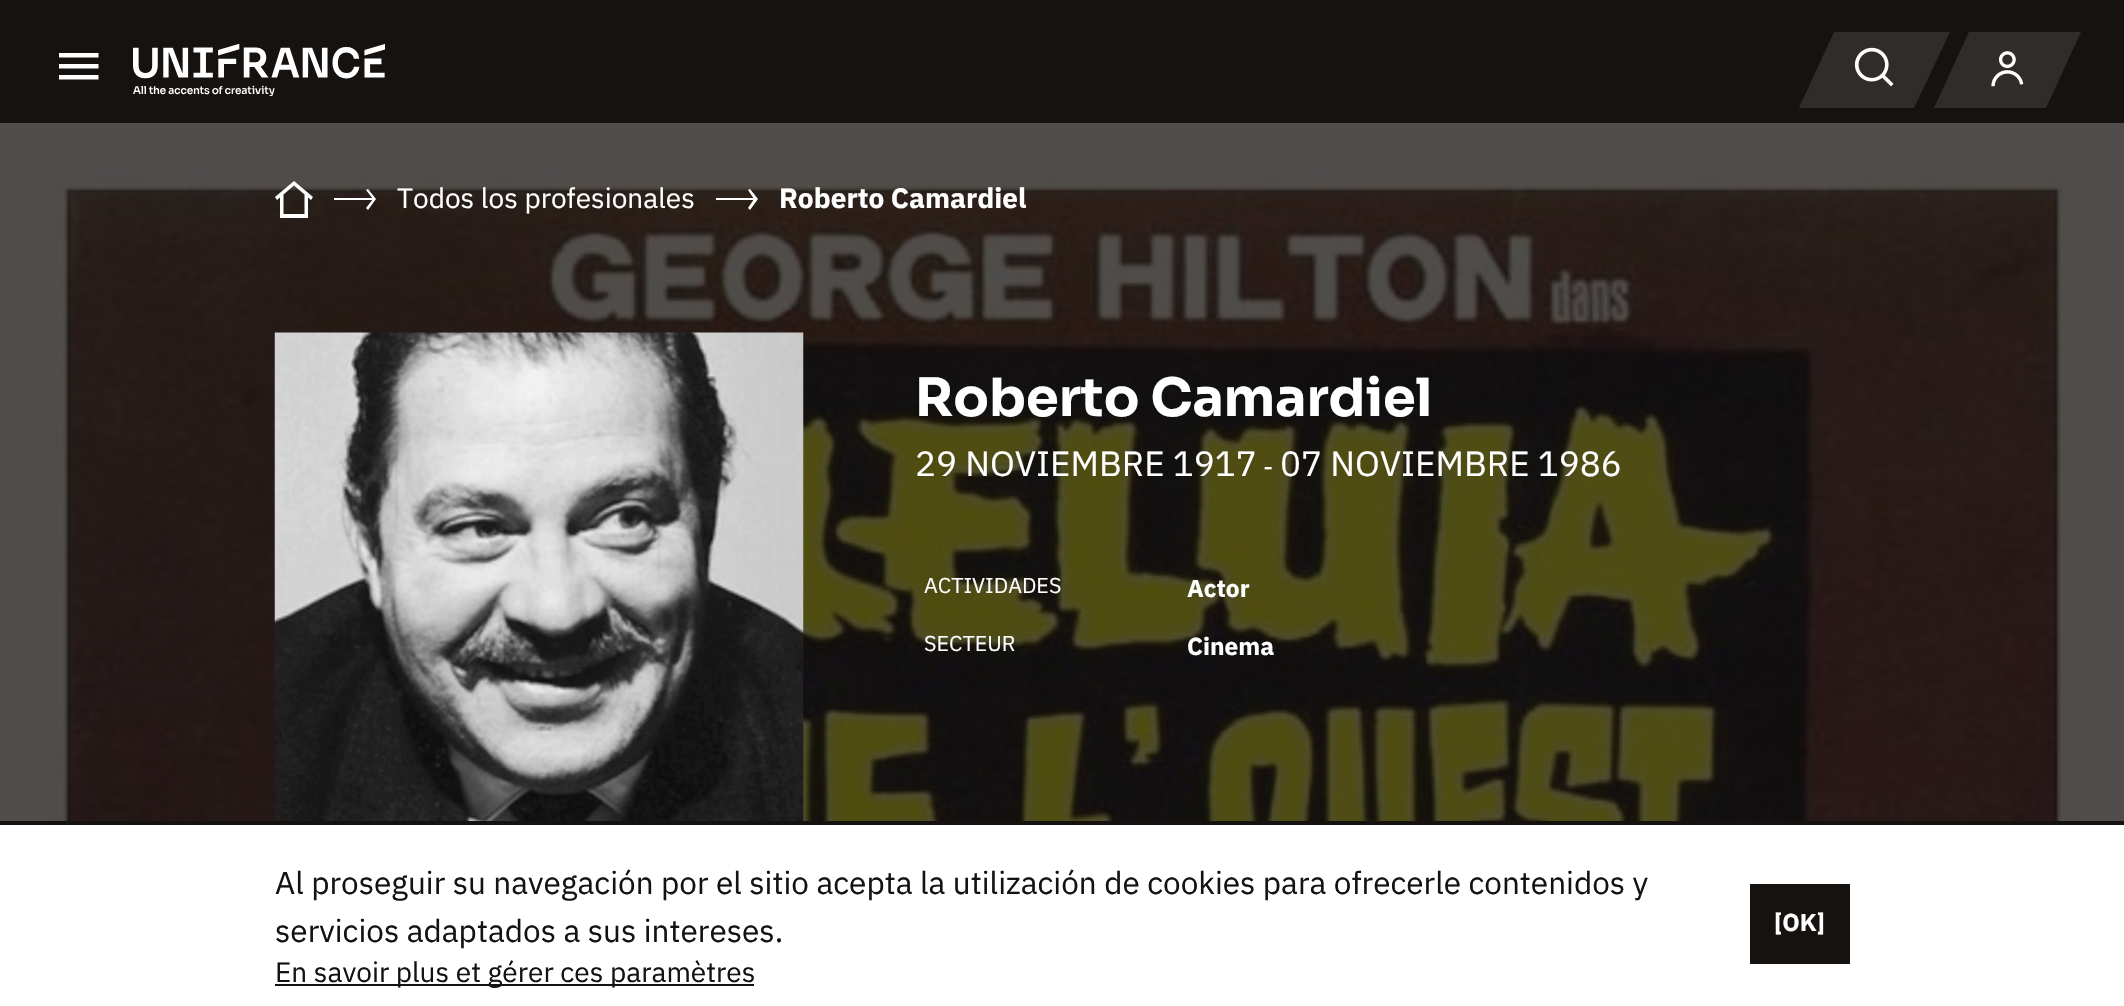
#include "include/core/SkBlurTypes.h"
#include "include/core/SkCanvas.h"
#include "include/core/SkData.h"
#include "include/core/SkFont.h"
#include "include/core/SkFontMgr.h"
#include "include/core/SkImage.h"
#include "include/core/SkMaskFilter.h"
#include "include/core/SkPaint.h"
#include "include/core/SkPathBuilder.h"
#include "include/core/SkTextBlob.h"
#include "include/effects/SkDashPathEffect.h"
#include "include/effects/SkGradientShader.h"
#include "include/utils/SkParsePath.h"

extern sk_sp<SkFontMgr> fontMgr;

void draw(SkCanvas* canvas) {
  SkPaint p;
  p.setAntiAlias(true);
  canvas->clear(SkColorSetRGB(80, 77, 76));
  p.setColor(SkColorSetRGB(21, 18, 16));
  canvas->drawRect(SkRect::MakeLTRB(0, 0, 2124, 123), p);
  p.setColor(SK_ColorWHITE);
  canvas->drawPath(SkPathBuilder().moveTo(59, 53).lineTo(98.5f, 53).lineTo(98.5f, 57.5f).lineTo(59, 57.5f).close().moveTo(59, 68.5f).lineTo(59, 64).lineTo(98.5f, 64).lineTo(98.5f, 68.5f).close().moveTo(59, 79.5f).lineTo(59, 75).lineTo(98.5f, 75).lineTo(98.5f, 79.5f).close().detach(), p);
  canvas->drawImageRect(SkImages::DeferredFromEncodedData(SkData::MakeFromFileName("images/1.png")), SkRect::MakeLTRB(133, 44, 385, 96), SkSamplingOptions());
  p.setColor(SkColorSetRGB(48, 44, 42));
  canvas->drawPath(SkPathBuilder().moveTo(1969, 32).lineTo(2081, 32).lineTo(2046, 108).lineTo(1934, 108).close().detach(), p);
  p.setColor(SkColorSetRGB(47, 44, 42));
  canvas->drawPath(SkPathBuilder().moveTo(1834, 32).lineTo(1950, 32).lineTo(1914, 108).lineTo(1799, 108).close().detach(), p);
  canvas->drawImageRect(SkImages::DeferredFromEncodedData(SkData::MakeFromFileName("images/2.png")), SkRect::MakeLTRB(1854, 47, 1894, 87), SkSamplingOptions());
  canvas->drawImageRect(SkImages::DeferredFromEncodedData(SkData::MakeFromFileName("images/3.png")), SkRect::MakeLTRB(1991, 51, 2024, 87), SkSamplingOptions());
  canvas->drawImageRect(SkImages::DeferredFromEncodedData(SkData::MakeFromFileName("images/4.png")), SkRect::MakeLTRB(46, 169, 2081, 821), SkSamplingOptions());
  p.setColor(SK_ColorWHITE);
  canvas->drawPath(SkPathBuilder().moveTo(313, 197).lineTo(294, 181).lineTo(275, 197).lineTo(277, 200).lineTo(280, 197.5f).lineTo(280, 218).lineTo(308, 218).lineTo(308, 197.5f).lineTo(311, 200).close().moveTo(304.5f, 214).lineTo(283.5f, 214).lineTo(283.5f, 194.5f).lineTo(294, 185.5f).lineTo(304.5f, 194.5f).close().detach(), p);
  canvas->drawPath(SkPathBuilder().moveTo(334, 198).lineTo(334, 200).lineTo(375, 200).lineTo(375, 198).close().moveTo(368, 189).lineTo(366, 190).lineTo(373, 199).lineTo(366, 208).lineTo(368, 210).lineTo(376, 199).close().detach(), p);
  canvas->drawPath(SkPathBuilder().moveTo(716, 198).lineTo(716, 200).lineTo(756, 200).lineTo(756, 198).close().moveTo(750, 189).lineTo(748, 190).lineTo(754, 199).lineTo(748, 208).lineTo(750, 210).lineTo(758, 199).close().detach(), p);
  canvas->drawImageRect(SkImages::DeferredFromEncodedData(SkData::MakeFromFileName("images/5.png")), SkRect::MakeLTRB(274, 332, 804, 821), SkSamplingOptions());
  canvas->drawRect(SkRect::MakeLTRB(0, 825, 2124, 1006), p);
  p.setColor(SkColorSetRGB(21, 18, 16));
  canvas->drawRect(SkRect::MakeLTRB(0, 821, 2124, 825), p);
  canvas->drawRect(SkRect::MakeLTRB(275, 984, 754, 986), p);
  canvas->drawRect(SkRect::MakeLTRB(1750, 884, 1850, 964), p);
  SkFont font1(fontMgr->matchFamilyStyle("IBM Plex Sans", SkFontStyle::Normal()), 28);
  font1.setSubpixel(true);
  p.setColor(SK_ColorWHITE);
  canvas->drawString("Todos los profesionales", 397, 208, font1, p);
  SkFont font2(fontMgr->matchFamilyStyle("IBM Plex Sans", SkFontStyle::Bold()), 28);
  font2.setSubpixel(true);
  canvas->drawString("Roberto Camardiel", 779, 208, font2, p);
  SkFont font3(fontMgr->matchFamilyStyle("Sora", SkFontStyle::Bold()), 52.5f);
  font3.setSubpixel(true);
  canvas->drawString("Roberto Camardiel", 915, 416, font3, p);
  SkFont font4(fontMgr->matchFamilyStyle("IBM Plex Sans", SkFontStyle::Normal()), 35);
  font4.setSubpixel(true);
  canvas->drawString("29 NOVIEMBRE 1917", 915, 476, font4, p);
  SkFont font5(fontMgr->matchFamilyStyle("IBM Plex Sans", SkFontStyle::Normal()), 26);
  font5.setSubpixel(true);
  canvas->drawString("-", 1263, 476, font5, p);
  canvas->drawString("07 NOVIEMBRE 1986", 1280, 476, font4, p);
  SkFont font6(fontMgr->matchFamilyStyle("IBM Plex Sans", SkFontStyle::Normal()), 21.5f);
  font6.setSubpixel(true);
  canvas->drawString("ACTIVIDADES", 924, 593, font6, p);
  SkFont font7(fontMgr->matchFamilyStyle("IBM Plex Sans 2", SkFontStyle::Bold()), 24.5f);
  font7.setSubpixel(true);
  canvas->drawString("Actor", 1187, 597, font7, p);
  canvas->drawString("SECTEUR", 924, 651, font6, p);
  canvas->drawString("Cinema", 1187, 655, font7, p);
  SkFont font8(fontMgr->matchFamilyStyle("IBM Plex Sans", SkFontStyle::Normal()), 31.5f);
  font8.setSubpixel(true);
  p.setColor(SkColorSetRGB(21, 18, 16));
  canvas->drawString("Al proseguir su navegación por el sitio acepta la utilización de cookies para ofrecerle contenidos y", 275, 894, font8, p);
  canvas->drawString("servicios adaptados a sus intereses.", 275, 942, font8, p);
  canvas->drawString("En savoir plus et gérer ces paramètres", 275, 982, font1, p);
  SkFont font9(fontMgr->matchFamilyStyle("IBM Plex Sans", SkFontStyle::Bold()), 24.5f);
  font9.setSubpixel(true);
  p.setColor(SK_ColorWHITE);
  canvas->drawString("[OK]", 1774, 931, font9, p);
}
